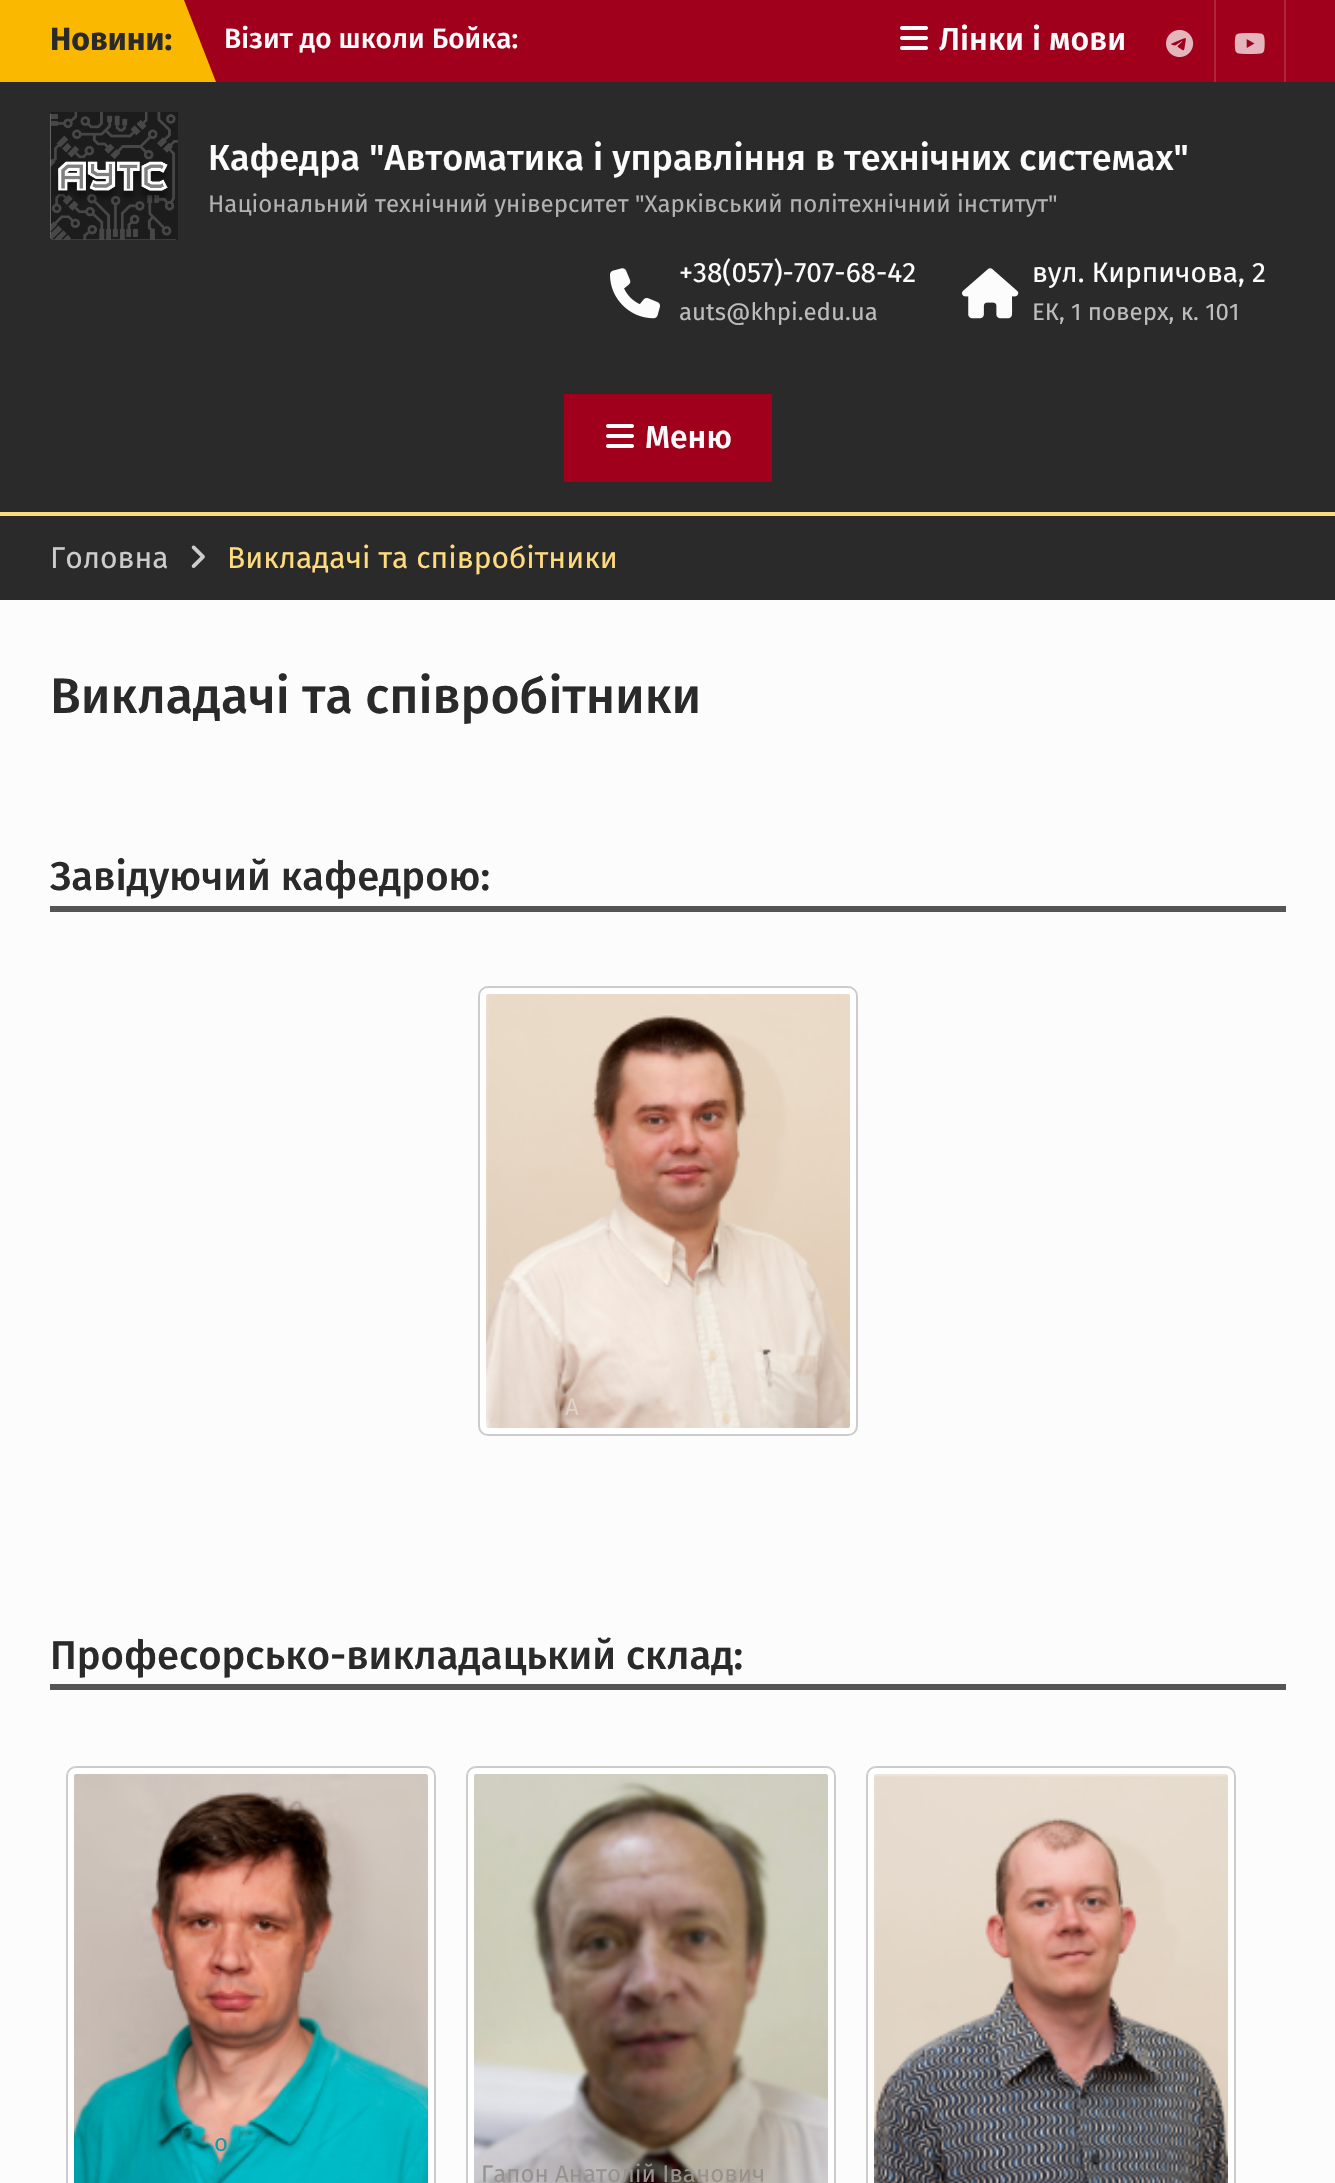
#include "include/core/SkBlurTypes.h"
#include "include/core/SkCanvas.h"
#include "include/core/SkData.h"
#include "include/core/SkFont.h"
#include "include/core/SkFontMgr.h"
#include "include/core/SkImage.h"
#include "include/core/SkMaskFilter.h"
#include "include/core/SkPaint.h"
#include "include/core/SkPathBuilder.h"
#include "include/core/SkTextBlob.h"
#include "include/effects/SkDashPathEffect.h"
#include "include/effects/SkGradientShader.h"
#include "include/utils/SkParsePath.h"

extern sk_sp<SkFontMgr> fontMgr;

void draw(SkCanvas* canvas) {
  SkPaint p;
  p.setAntiAlias(true);
  canvas->clear(SkColorSetRGB(252, 252, 252));
  p.setColor(SkColorSetRGB(160, 0, 27));
  canvas->drawRect(SkRect::MakeLTRB(184, 0, 1335, 82), p);
  p.setColor(SkColorSetRGB(251, 184, 0));
  canvas->drawRect(SkRect::MakeLTRB(0, 0, 184, 82), p);
  canvas->drawPath(SkPathBuilder().moveTo(184, 82).lineTo(184, 0).lineTo(216, 82).close().detach(), p);
  canvas->drawImageRect(SkImages::DeferredFromEncodedData(SkData::MakeFromFileName("images/1.png")), SkRect::MakeLTRB(900, 26, 928, 50), SkSamplingOptions());
  p.setColor(SkColorSetRGB(174, 38, 61));
  canvas->drawRect(SkRect::MakeLTRB(1214, 0, 1216, 82), p);
  canvas->drawImageRect(SkImages::DeferredFromEncodedData(SkData::MakeFromFileName("images/2.png")), SkRect::MakeLTRB(1166, 29, 1194, 58), SkSamplingOptions());
  canvas->drawRect(SkRect::MakeLTRB(1284, 0, 1286, 82), p);
  canvas->drawImageRect(SkImages::DeferredFromEncodedData(SkData::MakeFromFileName("images/3.png")), SkRect::MakeLTRB(1234, 33, 1265, 54), SkSamplingOptions());
  p.setColor(SkColorSetRGB(42, 42, 42));
  canvas->drawRect(SkRect::MakeLTRB(0, 82, 1335, 512), p);
  canvas->drawImageRect(SkImages::DeferredFromEncodedData(SkData::MakeFromFileName("images/4.png")), SkRect::MakeLTRB(50, 112, 178, 240), SkSamplingOptions());
  canvas->drawImageRect(SkImages::DeferredFromEncodedData(SkData::MakeFromFileName("images/5.png")), SkRect::MakeLTRB(610, 268, 660, 319), SkSamplingOptions());
  canvas->drawImageRect(SkImages::DeferredFromEncodedData(SkData::MakeFromFileName("images/6.png")), SkRect::MakeLTRB(962, 268, 1019, 319), SkSamplingOptions());
  p.setColor(SkColorSetRGB(160, 0, 27));
  canvas->drawRect(SkRect::MakeLTRB(564, 394, 772, 482), p);
  canvas->drawImageRect(SkImages::DeferredFromEncodedData(SkData::MakeFromFileName("images/1.png")), SkRect::MakeLTRB(606, 424, 634, 448), SkSamplingOptions());
  p.setColor(SkColorSetRGB(42, 42, 42));
  canvas->drawRect(SkRect::MakeLTRB(0, 516, 1335, 600), p);
  p.setColor(SkColorSetRGB(254, 219, 127));
  canvas->drawRect(SkRect::MakeLTRB(0, 512, 1335, 516), p);
  canvas->drawImageRect(SkImages::DeferredFromEncodedData(SkData::MakeFromFileName("images/7.png")), SkRect::MakeLTRB(191, 545, 205, 568), SkSamplingOptions());
  p.setColor(SkColorSetRGB(85, 85, 85));
  canvas->drawRect(SkRect::MakeLTRB(50, 906, 1286, 912), p);
  p.setColor(SK_ColorWHITE);
  canvas->drawRoundRect(SkRect::MakeLTRB(479, 987, 857, 1435), 9, 9, p);
  p.setStyle(SkPaint::kStroke_Style);
  p.setStrokeWidth(2);
  p.setColor(SkColorSetRGB(204, 204, 204));
  canvas->drawRoundRect(SkRect::MakeLTRB(479, 987, 857, 1435), 9, 9, p);
  canvas->drawImageRect(SkImages::DeferredFromEncodedData(SkData::MakeFromFileName("images/8.png")), SkRect::MakeLTRB(486, 994, 850, 1428), SkSamplingOptions());
  p.setStyle(SkPaint::kFill_Style);
  p.setColor(SkColorSetRGB(85, 85, 85));
  canvas->drawRect(SkRect::MakeLTRB(50, 1684, 1286, 1690), p);
  p.setColor(SK_ColorWHITE);
  canvas->drawRoundRect(SkRect::MakeLTRB(67, 1767, 435, 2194), 9, 9, p);
  p.setStyle(SkPaint::kStroke_Style);
  p.setColor(SkColorSetRGB(204, 204, 204));
  canvas->drawRoundRect(SkRect::MakeLTRB(67, 1767, 435, 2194), 9, 9, p);
  canvas->drawImageRect(SkImages::DeferredFromEncodedData(SkData::MakeFromFileName("images/9.png")), SkRect::MakeLTRB(74, 1774, 428, 2183), SkSamplingOptions());
  p.setStyle(SkPaint::kFill_Style);
  p.setColor(SK_ColorWHITE);
  canvas->drawRoundRect(SkRect::MakeLTRB(867, 1767, 1235, 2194), 9, 9, p);
  p.setStyle(SkPaint::kStroke_Style);
  p.setColor(SkColorSetRGB(204, 204, 204));
  canvas->drawRoundRect(SkRect::MakeLTRB(867, 1767, 1235, 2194), 9, 9, p);
  canvas->drawImageRect(SkImages::DeferredFromEncodedData(SkData::MakeFromFileName("images/10.png")), SkRect::MakeLTRB(874, 1774, 1228, 2183), SkSamplingOptions());
  p.setStyle(SkPaint::kFill_Style);
  p.setColor(SK_ColorWHITE);
  canvas->drawRoundRect(SkRect::MakeLTRB(467, 1767, 835, 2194), 9, 9, p);
  p.setStyle(SkPaint::kStroke_Style);
  p.setColor(SkColorSetRGB(204, 204, 204));
  canvas->drawRoundRect(SkRect::MakeLTRB(467, 1767, 835, 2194), 9, 9, p);
  canvas->drawImageRect(SkImages::DeferredFromEncodedData(SkData::MakeFromFileName("images/11.png")), SkRect::MakeLTRB(474, 1774, 828, 2183), SkSamplingOptions());
  SkFont font1(fontMgr->matchFamilyStyle("Fira Sans", SkFontStyle::Bold()), 32);
  font1.setSubpixel(true);
  p.setStyle(SkPaint::kFill_Style);
  p.setColor(SkColorSetRGB(42, 42, 42));
  canvas->drawString("Новини:", 50, 50, font1, p);
  SkFont font2(fontMgr->matchFamilyStyle("Fira Sans", SkFontStyle(500, SkFontStyle::kNormal_Width, SkFontStyle::kUpright_Slant)), 28);
  font2.setSubpixel(true);
  p.setColor(SkColorSetRGB(252, 252, 252));
  canvas->drawString("Візит до школи Бойка:", 224, 48, font2, p);
  SkFont font3(fontMgr->matchFamilyStyle("Fira Sans", SkFontStyle(500, SkFontStyle::kNormal_Width, SkFontStyle::kUpright_Slant)), 32);
  font3.setSubpixel(true);
  canvas->drawString("Лінки і мови", 939, 50, font3, p);
  SkFont font4(fontMgr->matchFamilyStyle("Fira Sans", SkFontStyle(500, SkFontStyle::kNormal_Width, SkFontStyle::kUpright_Slant)), 36);
  font4.setSubpixel(true);
  canvas->drawString("Кафедра \"Автоматика і управління в технічних системах\"", 208, 170, font4, p);
  SkFont font5(fontMgr->matchFamilyStyle("Fira Sans", SkFontStyle::Normal()), 24);
  font5.setSubpixel(true);
  p.setColor(SkColorSetRGB(178, 178, 178));
  canvas->drawString("Національний технічний університет \"Харківський політехнічний інститут\"", 208, 212, font5, p);
  SkFont font6(fontMgr->matchFamilyStyle("Fira Sans", SkFontStyle::Normal()), 28);
  font6.setSubpixel(true);
  p.setColor(SkColorSetRGB(252, 252, 252));
  canvas->drawString("+38(057)-707-68-42", 679, 282, font6, p);
  p.setColor(SkColorSetRGB(189, 189, 189));
  canvas->drawString("auts@khpi.edu.ua", 679, 320, font5, p);
  p.setColor(SkColorSetRGB(252, 252, 252));
  canvas->drawString("вул. Кирпичова, 2", 1032, 282, font6, p);
  p.setColor(SkColorSetRGB(189, 189, 189));
  canvas->drawString("ЕК, 1 поверх, к. 101", 1032, 320, font5, p);
  p.setColor(SkColorSetRGB(252, 252, 252));
  canvas->drawString("Меню", 645, 448, font3, p);
  SkFont font7(fontMgr->matchFamilyStyle("Fira Sans", SkFontStyle::Normal()), 30);
  font7.setSubpixel(true);
  p.setColor(SkColorSetRGB(204, 204, 204));
  canvas->drawString("Головна", 50, 568, font7, p);
  p.setColor(SkColorSetRGB(254, 219, 127));
  canvas->drawString("Викладачі та співробітники", 227, 568, font7, p);
  SkFont font8(fontMgr->matchFamilyStyle("Fira Sans", SkFontStyle(500, SkFontStyle::kNormal_Width, SkFontStyle::kUpright_Slant)), 50);
  font8.setSubpixel(true);
  p.setColor(SkColorSetRGB(42, 42, 42));
  canvas->drawString("Викладачі та співробітники", 50, 713, font8, p);
  SkFont font9(fontMgr->matchFamilyStyle("Fira Sans", SkFontStyle(500, SkFontStyle::kNormal_Width, SkFontStyle::kUpright_Slant)), 40);
  font9.setSubpixel(true);
  canvas->drawString("Завідуючий кафедрою:", 50, 890, font9, p);
  p.setColor(SkColorSetRGB(224, 209, 197));
  canvas->drawString("А", 565, 1415, font5, p);
  p.setColor(SkColorSetRGB(42, 42, 42));
  canvas->drawString("Професорсько-викладацький склад:", 50, 1669, font9, p);
  p.setColor(SkColorSetRGB(19, 158, 164));
  canvas->drawString("о", 214, 2151, font5, p);
  p.setColor(SkColorSetRGB(152, 146, 143));
  canvas->drawString("Гапон Анатолій Іванович", 481, 2182, font5, p);
}
